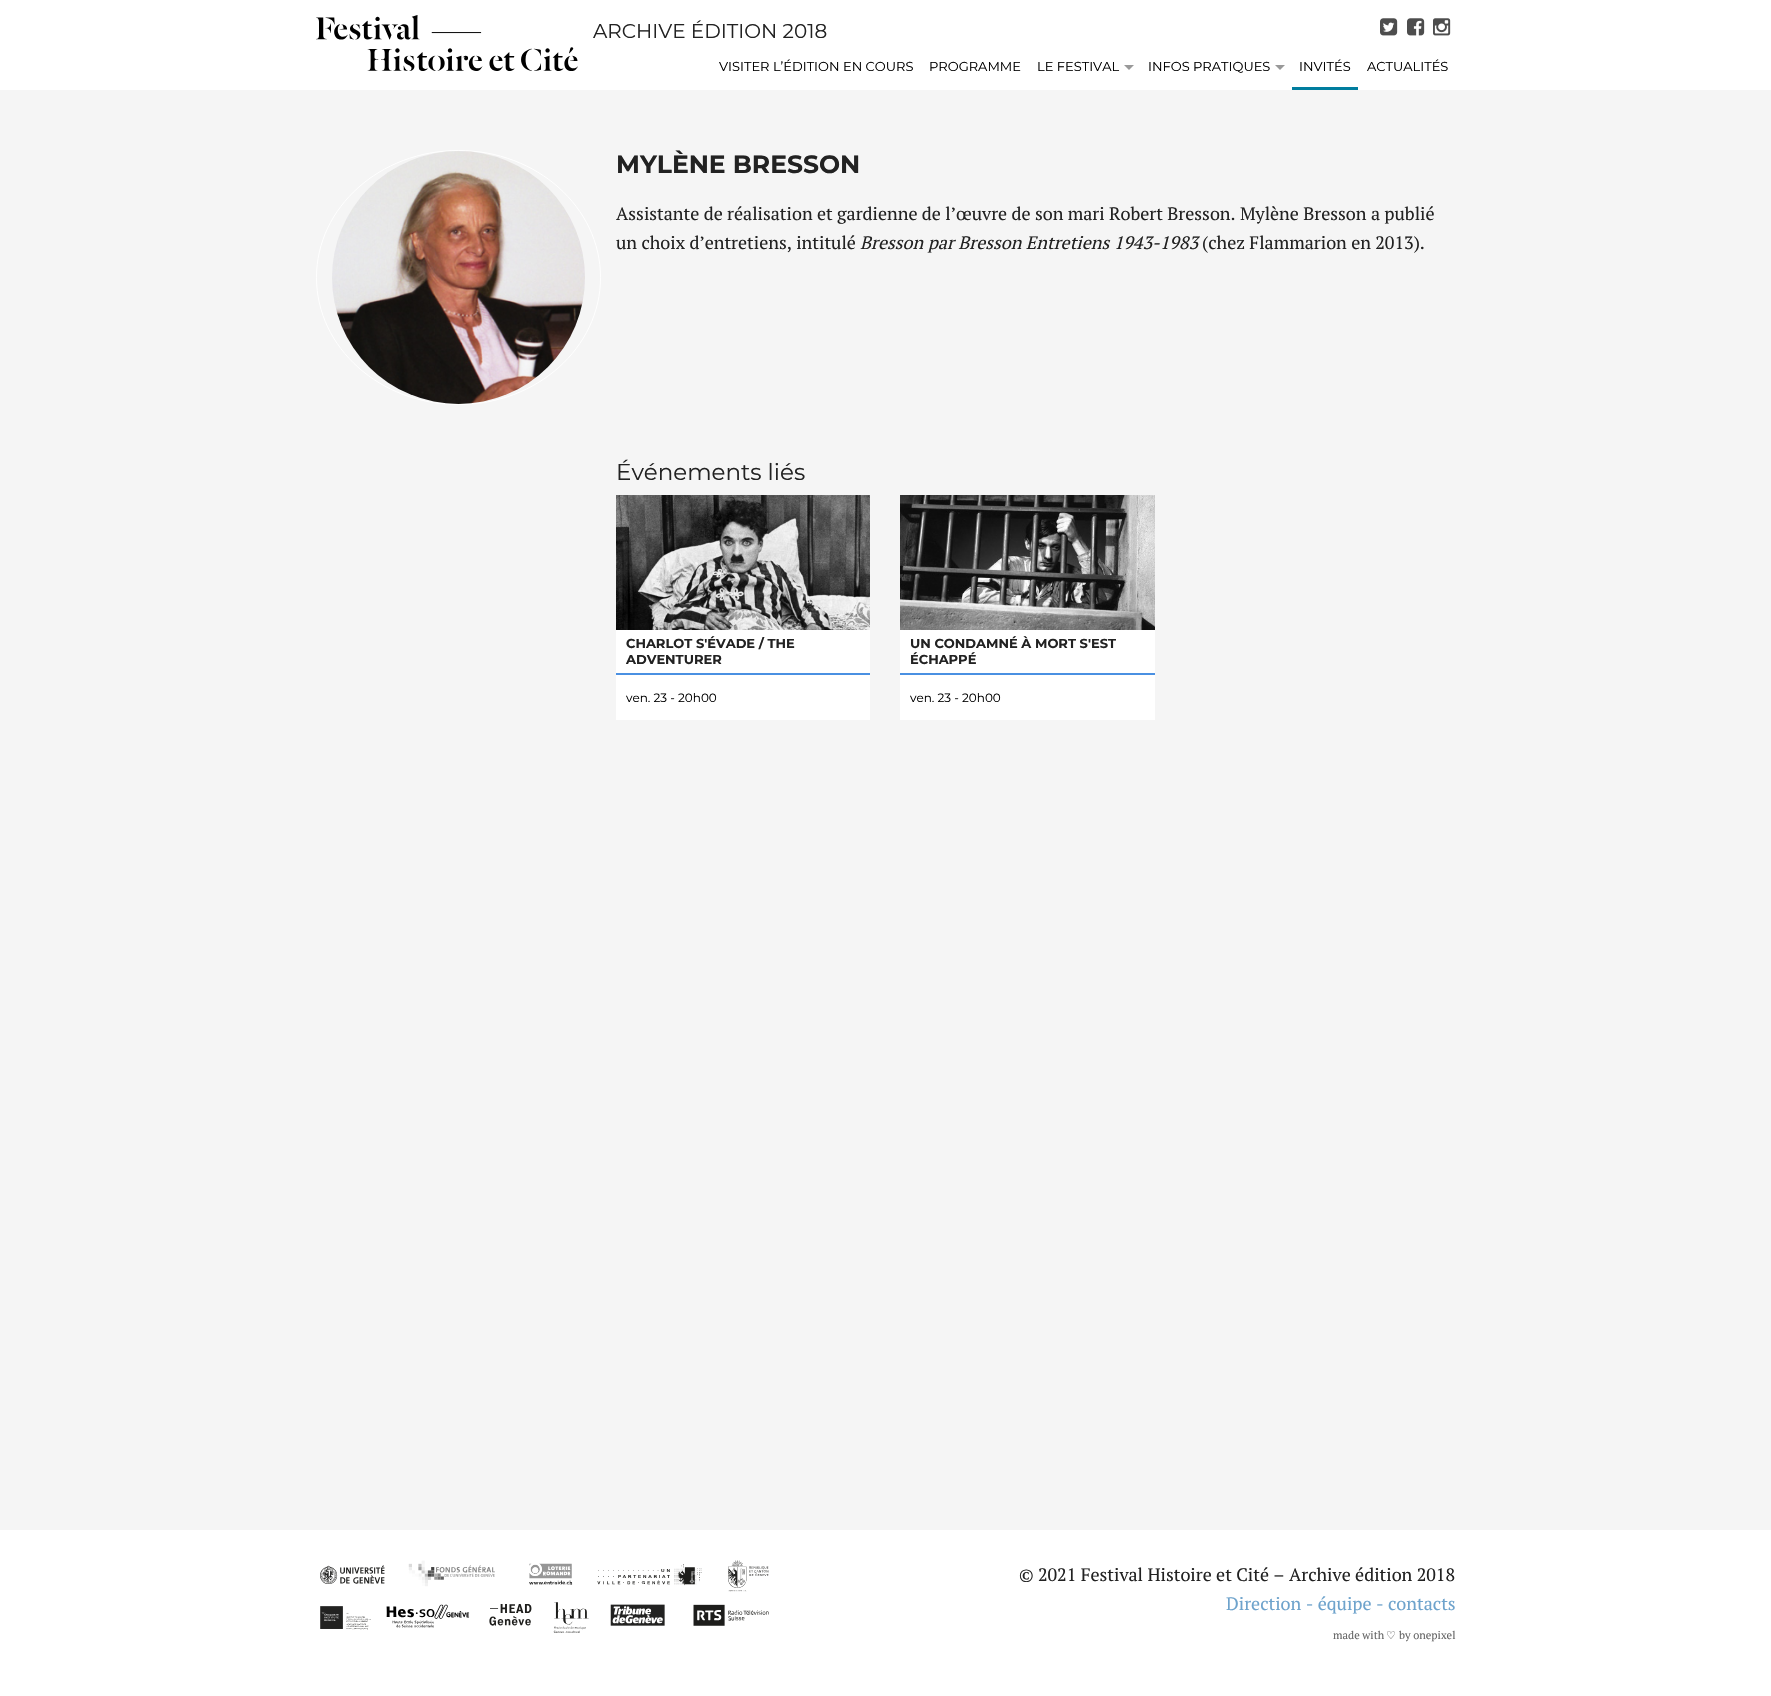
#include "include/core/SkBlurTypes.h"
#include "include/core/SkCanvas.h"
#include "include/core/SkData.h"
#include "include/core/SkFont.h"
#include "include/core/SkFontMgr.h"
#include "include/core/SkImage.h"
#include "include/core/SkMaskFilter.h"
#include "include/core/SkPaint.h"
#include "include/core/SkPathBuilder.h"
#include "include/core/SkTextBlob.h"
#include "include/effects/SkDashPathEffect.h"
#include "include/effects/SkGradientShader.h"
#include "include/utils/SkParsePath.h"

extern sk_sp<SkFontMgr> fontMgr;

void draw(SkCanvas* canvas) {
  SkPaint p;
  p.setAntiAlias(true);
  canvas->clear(SkColorSetRGB(245, 245, 245));
  p.setColor(SK_ColorWHITE);
  canvas->drawRect(SkRect::MakeLTRB(0, 0, 1771, 90), p);
  canvas->drawImageRect(SkImages::DeferredFromEncodedData(SkData::MakeFromFileName("images/1.png")), SkRect::MakeLTRB(316, 15, 578, 71), SkSamplingOptions());
  canvas->drawImageRect(SkImages::DeferredFromEncodedData(SkData::MakeFromFileName("images/2.png")), SkRect::MakeLTRB(1380, 18, 1398, 36), SkSamplingOptions());
  canvas->drawImageRect(SkImages::DeferredFromEncodedData(SkData::MakeFromFileName("images/3.png")), SkRect::MakeLTRB(1407, 18, 1425, 36), SkSamplingOptions());
  canvas->drawImageRect(SkImages::DeferredFromEncodedData(SkData::MakeFromFileName("images/4.png")), SkRect::MakeLTRB(1433, 18, 1451, 36), SkSamplingOptions());
  p.setColor(SkColorSetRGB(153, 153, 153));
  canvas->drawPath(SkPathBuilder().moveTo(1124, 65).lineTo(1134, 65).lineTo(1129, 70).close().detach(), p);
  canvas->drawPath(SkPathBuilder().moveTo(1275, 65).lineTo(1285, 65).lineTo(1280, 70).close().detach(), p);
  p.setColor(SkColorSetRGB(0, 125, 158));
  canvas->drawRect(SkRect::MakeLTRB(1292, 87, 1358, 90), p);
  p.setStyle(SkPaint::kStroke_Style);
  p.setStrokeWidth(1);
  p.setColor(SK_ColorWHITE);
  canvas->drawPath(SkPathBuilder().moveTo(458.5f, 150.5f).cubicTo(537, 150.5f, 600.5f, 207.5f, 600.5f, 277.5f).cubicTo(600.5f, 347.5f, 537, 404.5f, 458.5f, 404.5f).cubicTo(380, 404.5f, 316.5f, 347.5f, 316.5f, 277.5f).cubicTo(316.5f, 207.5f, 380, 150.5f, 458.5f, 150.5f).close().detach(), p);
  canvas->drawImageRect(SkImages::DeferredFromEncodedData(SkData::MakeFromFileName("images/5.png")), SkRect::MakeLTRB(332, 151, 585, 404), SkSamplingOptions());
  canvas->drawImageRect(SkImages::DeferredFromEncodedData(SkData::MakeFromFileName("images/6.png")), SkRect::MakeLTRB(616, 495, 870, 630), SkSamplingOptions());
  p.setStyle(SkPaint::kFill_Style);
  canvas->drawRect(SkRect::MakeLTRB(616, 630, 870, 720), p);
  p.setColor(SkColorSetRGB(74, 144, 226));
  canvas->drawRect(SkRect::MakeLTRB(616, 673, 870, 675), p);
  canvas->drawImageRect(SkImages::DeferredFromEncodedData(SkData::MakeFromFileName("images/7.png")), SkRect::MakeLTRB(900, 495, 1155, 630), SkSamplingOptions());
  p.setColor(SK_ColorWHITE);
  canvas->drawRect(SkRect::MakeLTRB(900, 630, 1155, 720), p);
  p.setColor(SkColorSetRGB(74, 144, 226));
  canvas->drawRect(SkRect::MakeLTRB(900, 673, 1155, 675), p);
  p.setColor(SK_ColorWHITE);
  canvas->drawRect(SkRect::MakeLTRB(0, 1530, 1771, 1696), p);
  canvas->drawImageRect(SkImages::DeferredFromEncodedData(SkData::MakeFromFileName("images/8.png")), SkRect::MakeLTRB(320, 1560, 769, 1633), SkSamplingOptions());
  SkFont font1(fontMgr->matchFamilyStyle("Montserrat", SkFontStyle::Normal()), 20);
  font1.setSubpixel(true);
  p.setColor(SkColorSetRGB(34, 34, 34));
  canvas->drawString("ARCHIVE ÉDITION 2018", 593, 38, font1, p);
  SkFont font2(fontMgr->matchFamilyStyle("Montserrat", SkFontStyle::Normal()), 13);
  font2.setSubpixel(true);
  p.setColor(SK_ColorBLACK);
  canvas->drawString("VISITER L’ÉDITION EN COURS", 719, 71, font2, p);
  canvas->drawString("PROGRAMME", 929, 71, font2, p);
  canvas->drawString("LE FESTIVAL", 1037, 71, font2, p);
  canvas->drawString("INFOS PRATIQUES", 1148, 71, font2, p);
  canvas->drawString("INVITÉS", 1299, 71, font2, p);
  canvas->drawString("ACTUALITÉS", 1367, 71, font2, p);
  SkFont font3(fontMgr->matchFamilyStyle("Montserrat", SkFontStyle::Bold()), 25);
  font3.setSubpixel(true);
  p.setColor(SkColorSetRGB(34, 34, 34));
  canvas->drawString("MYLÈNE BRESSON", 616, 173, font3, p);
  SkFont font4(fontMgr->matchFamilyStyle("PT Serif", SkFontStyle::Normal()), 18);
  font4.setSubpixel(true);
  canvas->drawString("Assistante de réalisation et gardienne de l’œuvre de son mari Robert Bresson. Mylène Bresson a publié", 616, 220, font4, p);
  canvas->drawString("un choix d’entretiens, intitulé", 616, 249, font4, p);
  SkFont font5(fontMgr->matchFamilyStyle("PT Serif", SkFontStyle::Italic()), 18);
  font5.setSubpixel(true);
  canvas->drawString("Bresson par Bresson Entretiens 1943-1983", 860, 249, font5, p);
  canvas->drawString("(chez Flammarion en 2013).", 1202, 249, font4, p);
  SkFont font6(fontMgr->matchFamilyStyle("Montserrat", SkFontStyle::Normal()), 23);
  font6.setSubpixel(true);
  canvas->drawString("Événements liés", 616, 480, font6, p);
  SkFont font7(fontMgr->matchFamilyStyle("Montserrat", SkFontStyle::Bold()), 13);
  font7.setSubpixel(true);
  canvas->drawString("CHARLOT S'ÉVADE / THE", 626, 648, font7, p);
  canvas->drawString("ADVENTURER", 626, 664, font7, p);
  SkFont font8(fontMgr->matchFamilyStyle("Montserrat", SkFontStyle::Normal()), 12);
  font8.setSubpixel(true);
  p.setColor(SK_ColorBLACK);
  canvas->drawString("ven. 23 - 20h00", 626, 702, font8, p);
  p.setColor(SkColorSetRGB(34, 34, 34));
  canvas->drawString("UN CONDAMNÉ À MORT S'EST", 910, 648, font7, p);
  canvas->drawString("ÉCHAPPÉ", 910, 664, font7, p);
  p.setColor(SK_ColorBLACK);
  canvas->drawString("ven. 23 - 20h00", 910, 702, font8, p);
  p.setColor(SkColorSetRGB(34, 34, 34));
  canvas->drawString("© 2021 Festival Histoire et Cité – Archive édition 2018", 1019, 1581, font4, p);
  p.setColor(SkColorSetRGB(110, 163, 204));
  canvas->drawString("Direction - équipe - contacts", 1226, 1610, font4, p);
  SkFont font9(fontMgr->matchFamilyStyle("PT Serif", SkFontStyle::Normal()), 11);
  font9.setSubpixel(true);
  p.setColor(SkColorSetRGB(102, 102, 102));
  canvas->drawString("made with", 1333, 1639, font9, p);
  SkFont font10(fontMgr->matchFamilyStyle("DejaVu Sans", SkFontStyle::Normal()), 11);
  font10.setSubpixel(true);
  canvas->drawString("♡", 1386, 1639, font10, p);
  canvas->drawString("by onepixel", 1399, 1639, font9, p);
}
